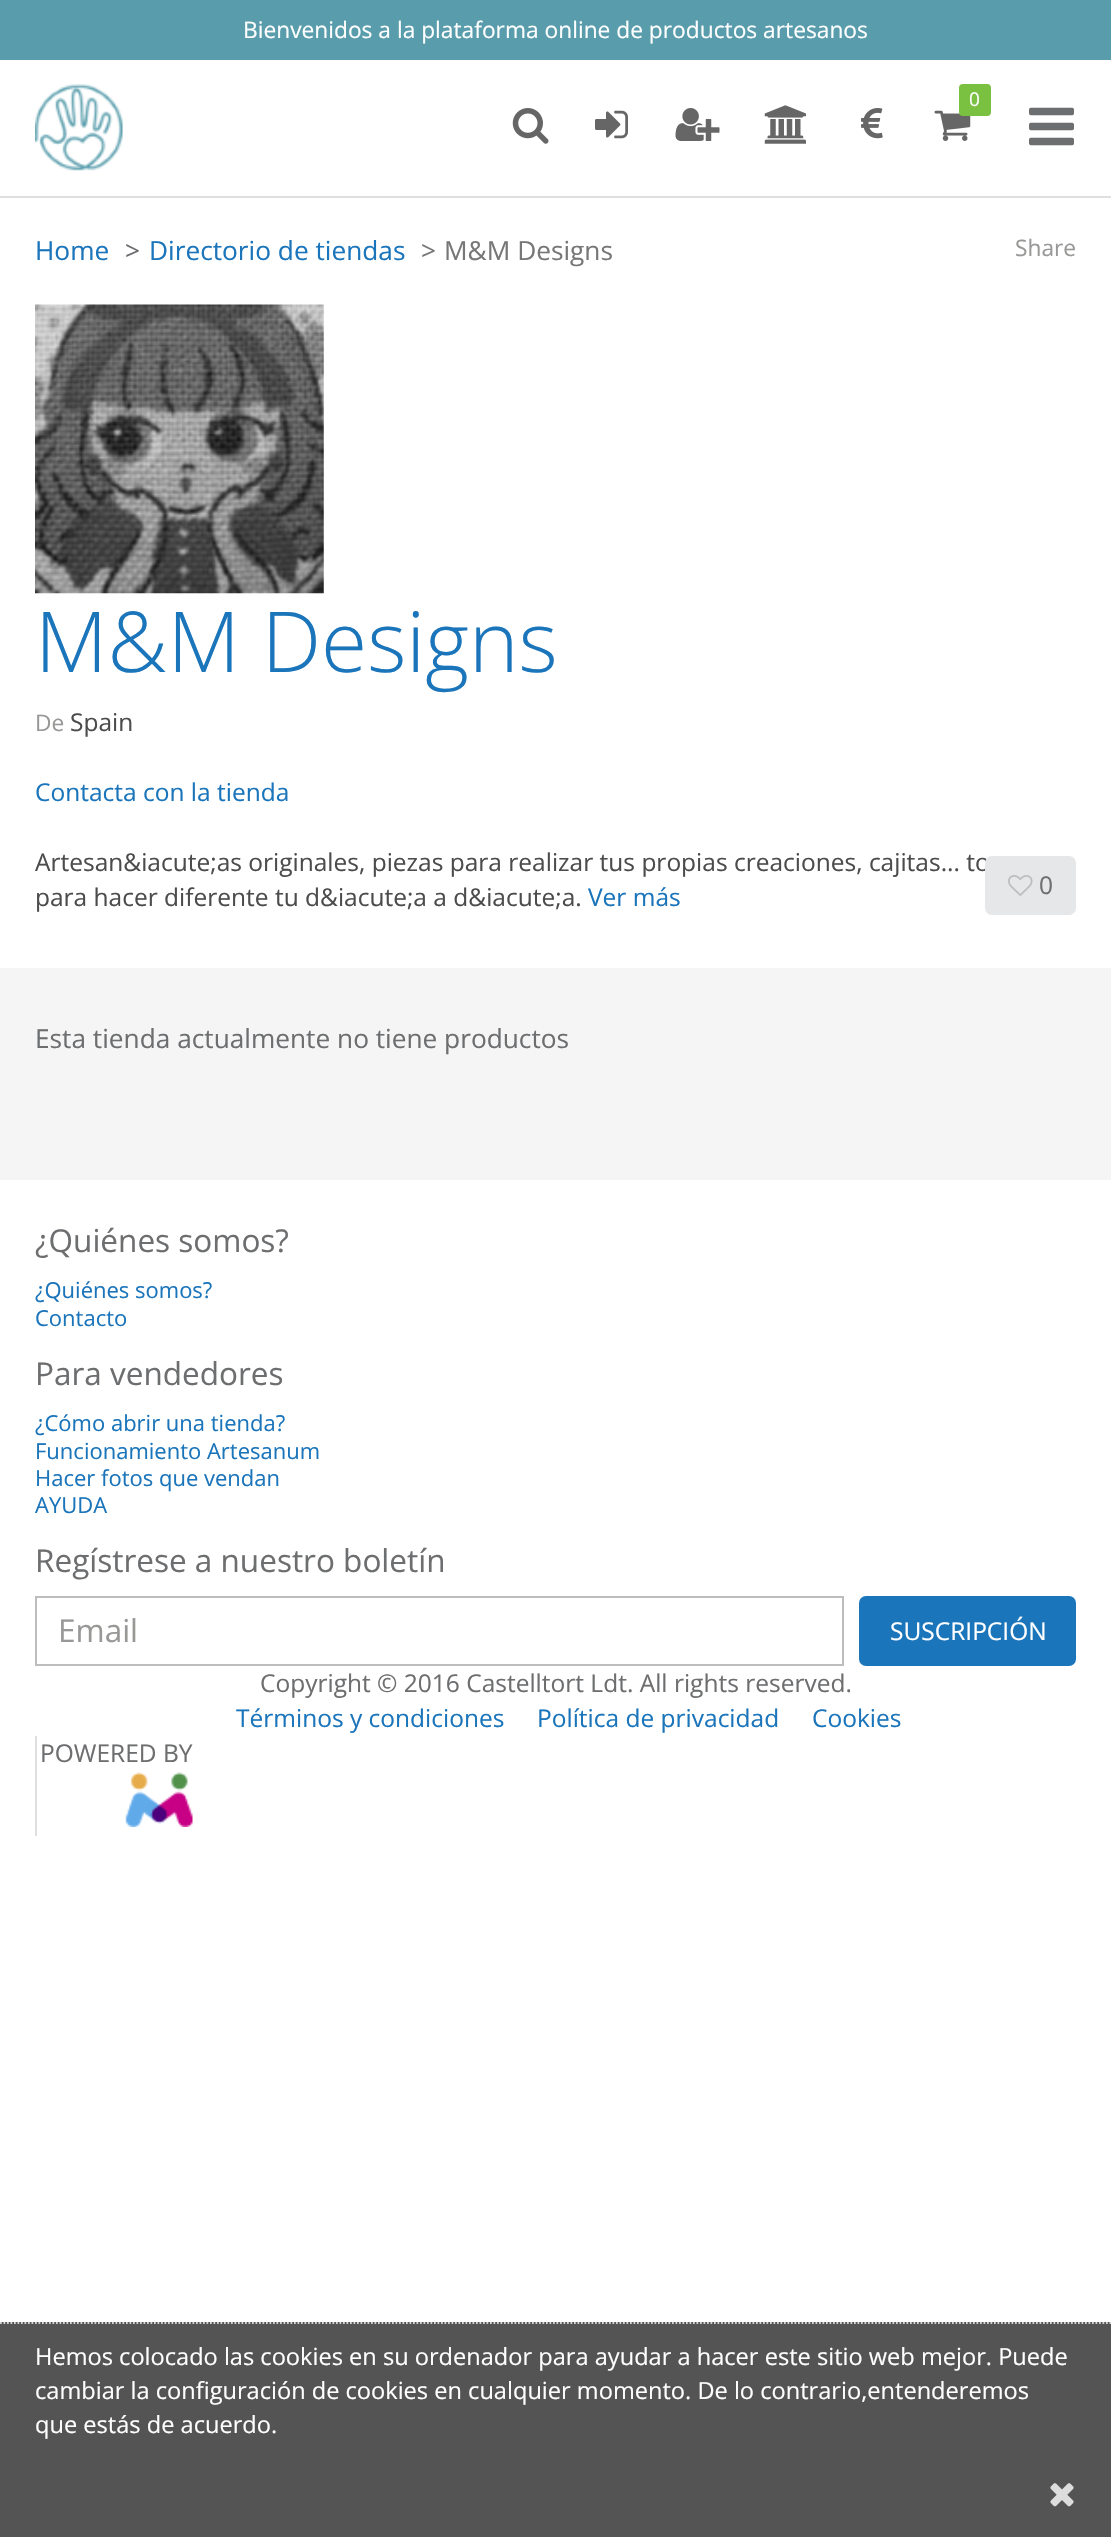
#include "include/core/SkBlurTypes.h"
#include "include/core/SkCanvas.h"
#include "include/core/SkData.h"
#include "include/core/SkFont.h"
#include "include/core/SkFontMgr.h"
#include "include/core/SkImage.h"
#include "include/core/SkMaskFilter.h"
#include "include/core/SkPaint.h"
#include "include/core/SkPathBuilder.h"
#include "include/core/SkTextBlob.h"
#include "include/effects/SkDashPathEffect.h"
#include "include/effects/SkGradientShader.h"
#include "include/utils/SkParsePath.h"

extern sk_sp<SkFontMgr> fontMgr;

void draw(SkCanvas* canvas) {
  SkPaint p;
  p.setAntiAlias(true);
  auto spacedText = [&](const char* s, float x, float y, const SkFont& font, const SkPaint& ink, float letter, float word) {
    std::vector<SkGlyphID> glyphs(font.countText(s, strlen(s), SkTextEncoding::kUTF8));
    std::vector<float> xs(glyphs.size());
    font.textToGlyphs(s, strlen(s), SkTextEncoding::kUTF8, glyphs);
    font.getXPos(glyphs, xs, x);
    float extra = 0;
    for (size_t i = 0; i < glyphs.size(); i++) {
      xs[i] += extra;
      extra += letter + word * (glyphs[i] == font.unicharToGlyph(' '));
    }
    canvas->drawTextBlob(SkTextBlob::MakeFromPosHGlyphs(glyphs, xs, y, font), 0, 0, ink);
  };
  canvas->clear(SK_ColorWHITE);
  p.setColor(SkColorSetRGB(89, 157, 173));
  canvas->drawRect(SkRect::MakeLTRB(0, 0, 1111, 60), p);
  p.setColor(SkColorSetRGB(223, 223, 224));
  canvas->drawRect(SkRect::MakeLTRB(0, 196, 1111, 198), p);
  canvas->drawImageRect(SkImages::DeferredFromEncodedData(SkData::MakeFromFileName("images/1.png")), SkRect::MakeLTRB(35, 84, 123, 171), SkSamplingOptions());
  canvas->drawImageRect(SkImages::DeferredFromEncodedData(SkData::MakeFromFileName("images/2.png")), SkRect::MakeLTRB(934, 110, 971, 141), SkSamplingOptions());
  p.setColor(SkColorSetRGB(122, 193, 66));
  canvas->drawRoundRect(SkRect::MakeLTRB(959, 84, 991, 116), 4, 4, p);
  canvas->drawImageRect(SkImages::DeferredFromEncodedData(SkData::MakeFromFileName("images/3.png")), SkRect::MakeLTRB(512, 108, 549, 144), SkSamplingOptions());
  canvas->drawImageRect(SkImages::DeferredFromEncodedData(SkData::MakeFromFileName("images/4.png")), SkRect::MakeLTRB(595, 110, 628, 139), SkSamplingOptions());
  canvas->drawImageRect(SkImages::DeferredFromEncodedData(SkData::MakeFromFileName("images/5.png")), SkRect::MakeLTRB(675, 108, 720, 141), SkSamplingOptions());
  canvas->drawImageRect(SkImages::DeferredFromEncodedData(SkData::MakeFromFileName("images/6.png")), SkRect::MakeLTRB(764, 105, 806, 144), SkSamplingOptions());
  canvas->drawImageRect(SkImages::DeferredFromEncodedData(SkData::MakeFromFileName("images/7.png")), SkRect::MakeLTRB(861, 108, 883, 139), SkSamplingOptions());
  canvas->drawImageRect(SkImages::DeferredFromEncodedData(SkData::MakeFromFileName("images/8.png")), SkRect::MakeLTRB(1029, 107, 1074, 146), SkSamplingOptions());
  p.setColor(SkColorSetRGB(245, 245, 245));
  canvas->drawRect(SkRect::MakeLTRB(0, 968, 1111, 1180), p);
  canvas->drawImageRect(SkImages::DeferredFromEncodedData(SkData::MakeFromFileName("images/9.png")), SkRect::MakeLTRB(35, 304, 324, 594), SkSamplingOptions());
  p.setStyle(SkPaint::kStroke_Style);
  p.setStrokeWidth(2);
  p.setColor(SkColorSetRGB(187, 189, 191));
  canvas->drawRect(SkRect::MakeLTRB(36, 1597, 843, 1665), p);
  p.setStyle(SkPaint::kFill_Style);
  p.setColor(SkColorSetRGB(27, 117, 187));
  canvas->drawRoundRect(SkRect::MakeLTRB(859, 1596, 1076, 1666), 7, 7, p);
  p.setColor(SkColorSetRGB(223, 223, 224));
  canvas->drawRect(SkRect::MakeLTRB(35, 1736, 37, 1836), p);
  canvas->drawImageRect(SkImages::DeferredFromEncodedData(SkData::MakeFromFileName("images/11.png")), SkRect::MakeLTRB(125, 1772, 193, 1827), SkSamplingOptions());
  p.setColor(SkColorSetRGB(84, 84, 84));
  canvas->drawRect(SkRect::MakeLTRB(0, 2322, 1111, 2537), p);
  p.setStyle(SkPaint::kStroke_Style);
  p.setStrokeWidth(1.8f);
  p.setColor(SkColorSetRGB(214, 214, 214));
  p.setPathEffect(SkDashPathEffect::Make({{1.75f, 1.75f}}, 0));
  canvas->drawPath(SkPathBuilder().moveTo(0, 2323).lineTo(1111, 2323).detach(), p);
  p.setPathEffect(nullptr);
  canvas->drawImageRect(SkImages::DeferredFromEncodedData(SkData::MakeFromFileName("images/12.png")), SkRect::MakeLTRB(1050, 2483, 1074, 2507), SkSamplingOptions());
  SkFont font1(fontMgr->matchFamilyStyle("Open Sans", SkFontStyle::Normal()), 22.75f);
  font1.setSubpixel(true);
  p.setStyle(SkPaint::kFill_Style);
  p.setColor(SK_ColorWHITE);
  canvas->drawString("Bienvenidos a la plataforma online de productos artesanos", 243, 38, font1, p);
  SkFont font2(fontMgr->matchFamilyStyle("Open Sans", SkFontStyle::Normal()), 19);
  font2.setSubpixel(true);
  spacedText("0", 969, 106, font2, p, 1, 0);
  SkFont font3(fontMgr->matchFamilyStyle("Open Sans", SkFontStyle::Normal()), 26.25f);
  font3.setSubpixel(true);
  p.setColor(SkColorSetRGB(27, 117, 187));
  canvas->drawString("Home", 35, 260, font3, p);
  p.setColor(SkColorSetRGB(109, 110, 112));
  canvas->drawString(">", 125, 260, font3, p);
  p.setColor(SkColorSetRGB(27, 117, 187));
  canvas->drawString("Directorio de tiendas", 149, 260, font3, p);
  p.setColor(SkColorSetRGB(119, 119, 119));
  canvas->drawString(">", 421, 260, font3, p);
  canvas->drawString("M&M Designs", 444, 260, font3, p);
  p.setColor(SkColorSetRGB(152, 152, 151));
  canvas->drawString("Share", 1015, 256, font1, p);
  SkFont font4(fontMgr->matchFamilyStyle("Open Sans", SkFontStyle(300, SkFontStyle::kNormal_Width, SkFontStyle::kUpright_Slant)), 84);
  font4.setSubpixel(true);
  p.setColor(SkColorSetRGB(27, 117, 187));
  canvas->drawString("M&M Designs", 35, 672, font4, p);
  p.setColor(SkColorSetRGB(152, 152, 151));
  canvas->drawString("De", 35, 731, font1, p);
  SkFont font5(fontMgr->matchFamilyStyle("Open Sans", SkFontStyle::Normal()), 24.5f);
  font5.setSubpixel(true);
  p.setColor(SkColorSetRGB(76, 76, 76));
  canvas->drawString("Spain", 70, 731, font5, p);
  p.setColor(SkColorSetRGB(27, 117, 187));
  canvas->drawString("Contacta con la tienda", 35, 801, font5, p);
  p.setColor(SkColorSetRGB(76, 76, 76));
  canvas->drawString("Artesan&iacute;as originales, piezas para realizar tus propias creaciones, cajitas... to", 35, 871, font5, p);
  canvas->drawString("para hacer diferente tu d&iacute;a a d&iacute;a.", 35, 906, font5, p);
  p.setColor(SkColorSetRGB(27, 117, 187));
  canvas->drawString("Ver más", 588, 906, font5, p);
  p.setColor(SkColorSetRGB(230, 231, 232));
  canvas->drawRoundRect(SkRect::MakeLTRB(985, 856, 1076, 915), 7, 7, p);
  canvas->drawImageRect(SkImages::DeferredFromEncodedData(SkData::MakeFromFileName("images/10.png")), SkRect::MakeLTRB(1008, 875, 1033, 896), SkSamplingOptions());
  p.setColor(SkColorSetRGB(109, 110, 112));
  canvas->drawString("0", 1039, 894, font5, p);
  canvas->drawString("Esta tienda actualmente no tiene productos", 35, 1048, font3, p);
  SkFont font6(fontMgr->matchFamilyStyle("Open Sans", SkFontStyle::Normal()), 31.5f);
  font6.setSubpixel(true);
  canvas->drawString("¿Quiénes somos?", 35, 1252, font6, p);
  SkFont font7(fontMgr->matchFamilyStyle("Open Sans", SkFontStyle::Normal()), 22);
  font7.setSubpixel(true);
  p.setColor(SkColorSetRGB(27, 117, 187));
  canvas->drawString("¿Quiénes somos?", 35, 1298, font7, p);
  canvas->drawString("Contacto", 35, 1326, font7, p);
  p.setColor(SkColorSetRGB(109, 110, 112));
  canvas->drawString("Para vendedores", 35, 1385, font6, p);
  p.setColor(SkColorSetRGB(27, 117, 187));
  canvas->drawString("¿Cómo abrir una tienda?", 35, 1431, font7, p);
  canvas->drawString("Funcionamiento Artesanum", 35, 1459, font7, p);
  canvas->drawString("Hacer fotos que vendan", 35, 1486, font7, p);
  canvas->drawString("AYUDA", 35, 1513, font7, p);
  p.setColor(SkColorSetRGB(109, 110, 112));
  canvas->drawString("Regístrese a nuestro boletín", 35, 1572, font6, p);
  p.setColor(SkColorSetRGB(152, 152, 151));
  canvas->drawString("Email", 58, 1642, font6, p);
  p.setColor(SK_ColorWHITE);
  canvas->drawString("SUSCRIPCIÓN", 890, 1640, font5, p);
  p.setColor(SkColorSetRGB(109, 110, 112));
  canvas->drawString("Copyright © 2016 Castelltort Ldt. All rights reserved.", 260, 1692, font5, p);
  p.setColor(SkColorSetRGB(27, 117, 187));
  canvas->drawString("Términos y condiciones", 236, 1727, font5, p);
  canvas->drawString("Política de privacidad", 537, 1727, font5, p);
  canvas->drawString("Cookies", 812, 1727, font5, p);
  p.setColor(SkColorSetRGB(109, 110, 112));
  canvas->drawString("POWERED BY", 40, 1762, font5, p);
  SkFont font8(fontMgr->matchFamilyStyle("Open Sans", SkFontStyle::Normal()), 23.6f);
  font8.setSubpixel(true);
  p.setColor(SK_ColorWHITE);
  canvas->drawString("Hemos colocado las cookies en su ordenador para ayudar a hacer este sitio web mejor. Puede", 35, 2365, font8, p);
  canvas->drawString("cambiar la configuración de cookies en cualquier momento. De lo contrario,entenderemos", 35, 2399, font8, p);
  canvas->drawString("que estás de acuerdo.", 35, 2433, font8, p);
}
